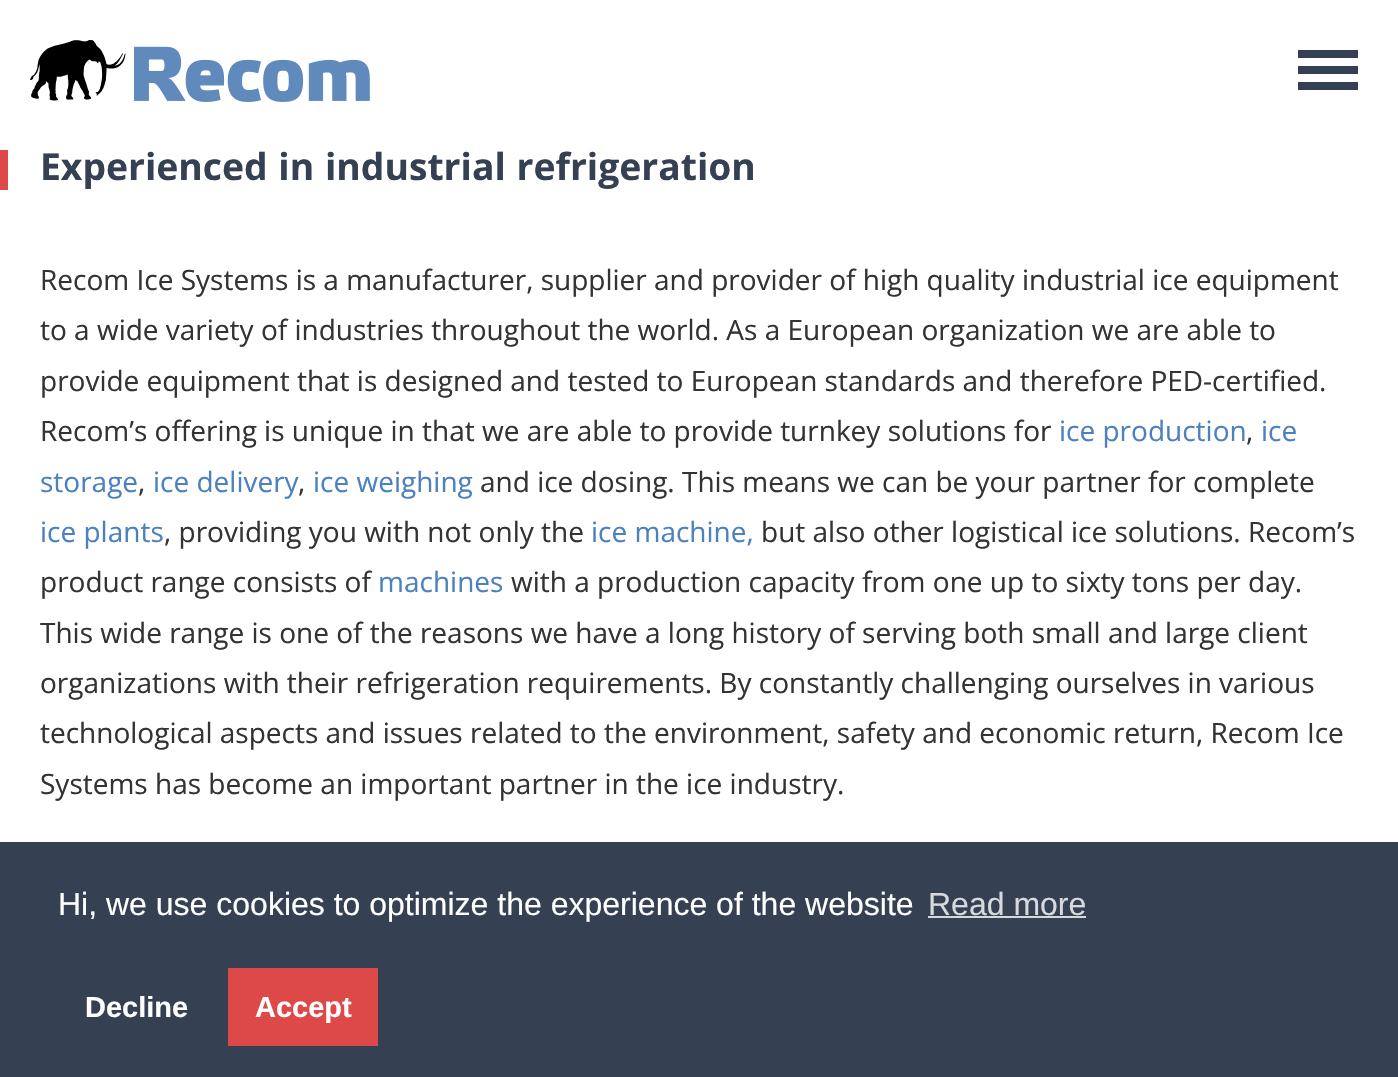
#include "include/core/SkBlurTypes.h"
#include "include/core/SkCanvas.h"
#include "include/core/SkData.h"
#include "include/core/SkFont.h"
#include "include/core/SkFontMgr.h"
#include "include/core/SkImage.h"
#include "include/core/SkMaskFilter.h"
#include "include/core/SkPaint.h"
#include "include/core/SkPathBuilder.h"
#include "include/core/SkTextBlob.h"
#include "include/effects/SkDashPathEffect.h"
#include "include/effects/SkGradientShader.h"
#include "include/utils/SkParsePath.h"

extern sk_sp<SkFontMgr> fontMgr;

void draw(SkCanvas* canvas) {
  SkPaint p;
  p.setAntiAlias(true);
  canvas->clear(SK_ColorWHITE);
  canvas->drawImageRect(SkImages::DeferredFromEncodedData(SkData::MakeFromFileName("images/1.png")), SkRect::MakeLTRB(30, 40, 370, 102), SkSamplingOptions());
  p.setColor(SkColorSetRGB(53, 65, 83));
  canvas->drawRect(SkRect::MakeLTRB(1298, 50, 1358, 58), p);
  canvas->drawRect(SkRect::MakeLTRB(1298, 66, 1358, 74), p);
  canvas->drawRect(SkRect::MakeLTRB(1298, 82, 1358, 90), p);
  p.setColor(SkColorSetRGB(221, 72, 72));
  canvas->drawRect(SkRect::MakeLTRB(0, 150, 8, 190), p);
  p.setColor(SkColorSetRGB(53, 65, 82));
  canvas->drawRect(SkRect::MakeLTRB(0, 842, 1398, 1077), p);
  p.setColor(SkColorSetRGB(215, 217, 220));
  canvas->drawRect(SkRect::MakeLTRB(928, 916, 1086, 918), p);
  p.setColor(SkColorSetRGB(221, 72, 72));
  canvas->drawRect(SkRect::MakeLTRB(228, 968, 378, 1046), p);
  SkFont font1(fontMgr->matchFamilyStyle("Khula", SkFontStyle::Bold()), 40);
  font1.setSubpixel(true);
  p.setColor(SkColorSetRGB(53, 64, 82));
  canvas->drawString("Experienced in industrial refrigeration", 40, 180, font1, p);
  SkFont font2(fontMgr->matchFamilyStyle("Open Sans", SkFontStyle::Normal()), 28);
  font2.setSubpixel(true);
  p.setColor(SkColorSetRGB(51, 51, 51));
  canvas->drawString("Recom Ice Systems is a manufacturer, supplier and provider of high quality industrial ice equipment", 40, 290, font2, p);
  canvas->drawString("to a wide variety of industries throughout the world. As a European organization we are able to", 40, 340, font2, p);
  canvas->drawString("provide equipment that is designed and tested to European standards and therefore PED-certified.", 40, 391, font2, p);
  canvas->drawString("Recom’s offering is unique in that we are able to provide turnkey solutions for", 40, 441, font2, p);
  p.setColor(SkColorSetRGB(76, 128, 190));
  canvas->drawString("ice production", 1059, 441, font2, p);
  p.setColor(SkColorSetRGB(51, 51, 51));
  canvas->drawString(",", 1246, 441, font2, p);
  p.setColor(SkColorSetRGB(76, 128, 190));
  canvas->drawString("ice", 1261, 441, font2, p);
  canvas->drawString("storage", 40, 492, font2, p);
  p.setColor(SkColorSetRGB(51, 51, 51));
  canvas->drawString(",", 138, 492, font2, p);
  p.setColor(SkColorSetRGB(76, 128, 190));
  canvas->drawString("ice delivery", 153, 492, font2, p);
  p.setColor(SkColorSetRGB(51, 51, 51));
  canvas->drawString(",", 298, 492, font2, p);
  p.setColor(SkColorSetRGB(76, 128, 190));
  canvas->drawString("ice weighing", 313, 492, font2, p);
  p.setColor(SkColorSetRGB(51, 51, 51));
  canvas->drawString("and ice dosing. This means we can be your partner for complete", 480, 492, font2, p);
  p.setColor(SkColorSetRGB(76, 128, 190));
  canvas->drawString("ice plants", 40, 542, font2, p);
  p.setColor(SkColorSetRGB(51, 51, 51));
  canvas->drawString(", providing you with not only the", 164, 542, font2, p);
  p.setColor(SkColorSetRGB(76, 128, 190));
  canvas->drawString("ice machine,", 591, 542, font2, p);
  p.setColor(SkColorSetRGB(51, 51, 51));
  canvas->drawString("but also other logistical ice solutions. Recom’s", 761, 542, font2, p);
  canvas->drawString("product range consists of", 40, 592, font2, p);
  p.setColor(SkColorSetRGB(76, 128, 190));
  canvas->drawString("machines", 378, 592, font2, p);
  p.setColor(SkColorSetRGB(51, 51, 51));
  canvas->drawString("with a production capacity from one up to sixty tons per day.", 511, 592, font2, p);
  canvas->drawString("This wide range is one of the reasons we have a long history of serving both small and large client", 40, 643, font2, p);
  canvas->drawString("organizations with their refrigeration requirements. By constantly challenging ourselves in various", 40, 693, font2, p);
  canvas->drawString("technological aspects and issues related to the environment, safety and economic return, Recom Ice", 40, 743, font2, p);
  canvas->drawString("Systems has become an important partner in the ice industry.", 40, 794, font2, p);
  SkFont font3(fontMgr->matchFamilyStyle("Liberation Sans", SkFontStyle::Normal()), 32);
  font3.setSubpixel(true);
  p.setColor(SK_ColorWHITE);
  canvas->drawString("Hi, we use cookies to optimize the experience of the website", 58, 915, font3, p);
  p.setColor(SkColorSetRGB(215, 217, 220));
  canvas->drawString("Read more", 928, 915, font3, p);
  SkFont font4(fontMgr->matchFamilyStyle("Liberation Sans", SkFontStyle::Bold()), 29);
  font4.setSubpixel(true);
  p.setColor(SK_ColorWHITE);
  canvas->drawString("Decline", 85, 1017, font4, p);
  canvas->drawString("Accept", 255, 1017, font4, p);
}
